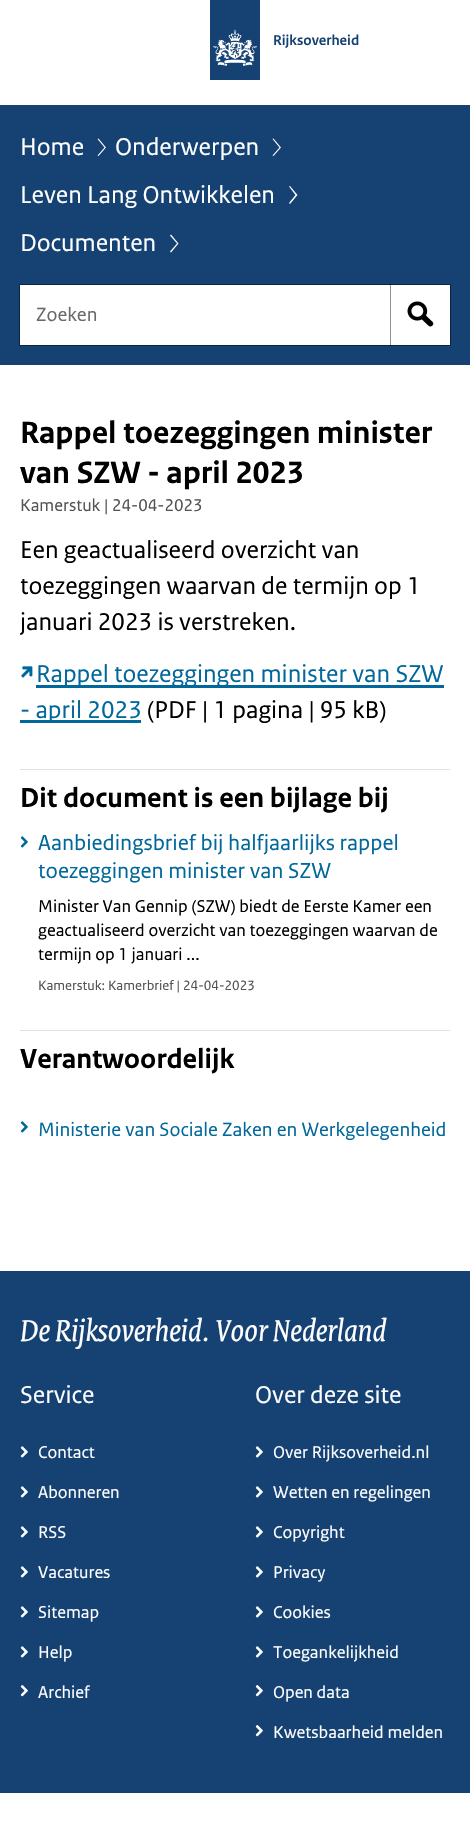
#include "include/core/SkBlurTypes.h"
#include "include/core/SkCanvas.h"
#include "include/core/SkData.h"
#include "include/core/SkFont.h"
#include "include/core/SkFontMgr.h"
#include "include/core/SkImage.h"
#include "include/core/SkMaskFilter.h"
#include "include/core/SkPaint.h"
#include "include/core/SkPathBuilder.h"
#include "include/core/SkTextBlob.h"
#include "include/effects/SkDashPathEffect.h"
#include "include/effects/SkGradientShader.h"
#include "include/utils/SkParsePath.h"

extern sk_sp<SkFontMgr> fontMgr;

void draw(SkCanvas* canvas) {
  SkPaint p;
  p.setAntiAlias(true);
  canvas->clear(SK_ColorWHITE);
  canvas->drawImageRect(SkImages::DeferredFromEncodedData(SkData::MakeFromFileName("images/1.png")), SkRect::MakeLTRB(210, 0, 260, 80), SkSamplingOptions());
  p.setColor(SkColorSetRGB(21, 66, 115));
  canvas->drawRect(SkRect::MakeLTRB(0, 105, 470, 365), p);
  p.setColor(SK_ColorWHITE);
  canvas->drawPath(SkPathBuilder().moveTo(98.5f, 156).lineTo(97.5f, 155.5f).lineTo(104.5f, 147.5f).lineTo(97.5f, 139).lineTo(98.5f, 138.5f).lineTo(106, 147.5f).close().detach(), p);
  canvas->drawPath(SkPathBuilder().moveTo(273.5f, 156).lineTo(272.5f, 155.5f).lineTo(279.5f, 147.5f).lineTo(272.5f, 139).lineTo(273.5f, 138.5f).lineTo(281, 147.5f).close().detach(), p);
  canvas->drawPath(SkPathBuilder().moveTo(290, 204).lineTo(289, 203).lineTo(295.5f, 195).lineTo(289, 186.5f).lineTo(290, 186).lineTo(297.5f, 195).close().detach(), p);
  canvas->drawPath(SkPathBuilder().moveTo(171, 252.5f).lineTo(170, 251.5f).lineTo(177, 243.5f).lineTo(170, 235.5f).lineTo(171, 234.5f).lineTo(178.5f, 243.5f).close().detach(), p);
  canvas->drawRect(SkRect::MakeLTRB(389.5f, 284.5f, 450.5f, 345.5f), p);
  p.setStyle(SkPaint::kStroke_Style);
  p.setStrokeWidth(1);
  p.setColor(SkColorSetRGB(12, 37, 64));
  canvas->drawRect(SkRect::MakeLTRB(389.5f, 284.5f, 450.5f, 345.5f), p);
  p.setColor(SkColorSetARGB(112, 0, 0, 0));
  canvas->drawRect(SkRect::MakeLTRB(19.5f, 284.5f, 390.5f, 345.5f), p);
  p.setStyle(SkPaint::kFill_Style);
  p.setColor(SK_ColorWHITE);
  canvas->drawRect(SkRect::MakeLTRB(20, 285, 390, 345), p);
  canvas->drawImageRect(SkImages::DeferredFromEncodedData(SkData::MakeFromFileName("images/2.png")), SkRect::MakeLTRB(407, 301, 434, 327), SkSamplingOptions());
  canvas->drawImageRect(SkImages::DeferredFromEncodedData(SkData::MakeFromFileName("images/3.png")), SkRect::MakeLTRB(21, 666, 33, 678), SkSamplingOptions());
  p.setColor(SkColorSetRGB(1, 104, 155));
  canvas->drawRect(SkRect::MakeLTRB(36, 685, 444, 688), p);
  canvas->drawRect(SkRect::MakeLTRB(20, 720, 141, 723), p);
  p.setColor(SkColorSetRGB(225, 225, 225));
  canvas->drawRect(SkRect::MakeLTRB(20, 769, 450, 770), p);
  canvas->drawImageRect(SkImages::DeferredFromEncodedData(SkData::MakeFromFileName("images/4.png")), SkRect::MakeLTRB(20, 836, 28, 848), SkSamplingOptions());
  canvas->drawRect(SkRect::MakeLTRB(20, 1030, 450, 1031), p);
  canvas->drawImageRect(SkImages::DeferredFromEncodedData(SkData::MakeFromFileName("images/4.png")), SkRect::MakeLTRB(20, 1121, 28, 1133), SkSamplingOptions());
  p.setColor(SkColorSetRGB(21, 66, 115));
  canvas->drawRect(SkRect::MakeLTRB(0, 1271, 470, 1793), p);
  canvas->drawImageRect(SkImages::DeferredFromEncodedData(SkData::MakeFromFileName("images/5.png")), SkRect::MakeLTRB(20, 1446, 28, 1458), SkSamplingOptions());
  canvas->drawImageRect(SkImages::DeferredFromEncodedData(SkData::MakeFromFileName("images/5.png")), SkRect::MakeLTRB(20, 1486, 28, 1498), SkSamplingOptions());
  canvas->drawImageRect(SkImages::DeferredFromEncodedData(SkData::MakeFromFileName("images/5.png")), SkRect::MakeLTRB(20, 1526, 28, 1538), SkSamplingOptions());
  canvas->drawImageRect(SkImages::DeferredFromEncodedData(SkData::MakeFromFileName("images/5.png")), SkRect::MakeLTRB(20, 1566, 28, 1578), SkSamplingOptions());
  canvas->drawImageRect(SkImages::DeferredFromEncodedData(SkData::MakeFromFileName("images/5.png")), SkRect::MakeLTRB(20, 1606, 28, 1618), SkSamplingOptions());
  canvas->drawImageRect(SkImages::DeferredFromEncodedData(SkData::MakeFromFileName("images/5.png")), SkRect::MakeLTRB(20, 1646, 28, 1658), SkSamplingOptions());
  canvas->drawImageRect(SkImages::DeferredFromEncodedData(SkData::MakeFromFileName("images/6.png")), SkRect::MakeLTRB(20, 1685, 28, 1697), SkSamplingOptions());
  canvas->drawImageRect(SkImages::DeferredFromEncodedData(SkData::MakeFromFileName("images/5.png")), SkRect::MakeLTRB(255, 1446, 263, 1458), SkSamplingOptions());
  canvas->drawImageRect(SkImages::DeferredFromEncodedData(SkData::MakeFromFileName("images/5.png")), SkRect::MakeLTRB(255, 1486, 263, 1498), SkSamplingOptions());
  canvas->drawImageRect(SkImages::DeferredFromEncodedData(SkData::MakeFromFileName("images/5.png")), SkRect::MakeLTRB(255, 1526, 263, 1538), SkSamplingOptions());
  canvas->drawImageRect(SkImages::DeferredFromEncodedData(SkData::MakeFromFileName("images/5.png")), SkRect::MakeLTRB(255, 1566, 263, 1578), SkSamplingOptions());
  canvas->drawImageRect(SkImages::DeferredFromEncodedData(SkData::MakeFromFileName("images/5.png")), SkRect::MakeLTRB(255, 1606, 263, 1618), SkSamplingOptions());
  canvas->drawImageRect(SkImages::DeferredFromEncodedData(SkData::MakeFromFileName("images/5.png")), SkRect::MakeLTRB(255, 1646, 263, 1658), SkSamplingOptions());
  canvas->drawImageRect(SkImages::DeferredFromEncodedData(SkData::MakeFromFileName("images/6.png")), SkRect::MakeLTRB(255, 1685, 263, 1697), SkSamplingOptions());
  canvas->drawImageRect(SkImages::DeferredFromEncodedData(SkData::MakeFromFileName("images/6.png")), SkRect::MakeLTRB(255, 1725, 263, 1737), SkSamplingOptions());
  SkFont font1(fontMgr->matchFamilyStyle("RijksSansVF", SkFontStyle(600, SkFontStyle::kNormal_Width, SkFontStyle::kUpright_Slant)), 15);
  font1.setSubpixel(true);
  canvas->drawString("Rijksoverheid", 273, 45, font1, p);
  SkFont font2(fontMgr->matchFamilyStyle("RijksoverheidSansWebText", SkFontStyle::Normal()), 25.6f);
  font2.setSubpixel(true);
  p.setColor(SK_ColorWHITE);
  canvas->drawString("Home", 20, 155, font2, p);
  canvas->drawString("Onderwerpen", 115, 155, font2, p);
  canvas->drawString("Leven Lang Ontwikkelen", 20, 203, font2, p);
  canvas->drawString("Documenten", 20, 251, font2, p);
  SkFont font3(fontMgr->matchFamilyStyle("RijksoverheidSansWebText", SkFontStyle::Normal()), 20.25f);
  font3.setSubpixel(true);
  p.setColor(SkColorSetRGB(105, 105, 105));
  canvas->drawString("Zoeken", 36, 321, font3, p);
  SkFont font4(fontMgr->matchFamilyStyle("RijksoverheidSansWebText", SkFontStyle::Bold()), 32.5f);
  font4.setSubpixel(true);
  p.setColor(SK_ColorBLACK);
  canvas->drawString("Rappel toezeggingen minister", 20, 443, font4, p);
  canvas->drawString("van SZW - april 2023", 20, 483, font4, p);
  SkFont font5(fontMgr->matchFamilyStyle("RijksoverheidSansWebText", SkFontStyle::Normal()), 18);
  font5.setSubpixel(true);
  p.setColor(SkColorSetRGB(83, 83, 83));
  canvas->drawString("Kamerstuk | 24-04-2023", 20, 511, font5, p);
  p.setColor(SK_ColorBLACK);
  canvas->drawString("Een geactualiseerd overzicht van", 20, 558, font2, p);
  canvas->drawString("toezeggingen waarvan de termijn op 1", 20, 594, font2, p);
  canvas->drawString("januari 2023 is verstreken.", 20, 630, font2, p);
  p.setColor(SkColorSetRGB(1, 104, 155));
  canvas->drawString("Rappel toezeggingen minister van SZW", 36, 682, font2, p);
  canvas->drawString("- april 2023", 20, 718, font2, p);
  p.setColor(SK_ColorBLACK);
  canvas->drawString("(PDF | 1 pagina | 95 kB)", 147, 718, font2, p);
  SkFont font6(fontMgr->matchFamilyStyle("RijksoverheidSansWebText", SkFontStyle::Bold()), 28.8f);
  font6.setSubpixel(true);
  canvas->drawString("Dit document is een bijlage bij", 20, 807, font6, p);
  SkFont font7(fontMgr->matchFamilyStyle("RijksoverheidSansWebText", SkFontStyle::Normal()), 22.75f);
  font7.setSubpixel(true);
  p.setColor(SkColorSetRGB(1, 104, 155));
  canvas->drawString("Aanbiedingsbrief bij halfjaarlijks rappel", 38, 850, font7, p);
  canvas->drawString("toezeggingen minister van SZW", 38, 878, font7, p);
  p.setColor(SK_ColorBLACK);
  canvas->drawString("Minister Van Gennip (SZW) biedt de Eerste Kamer een", 38, 912, font5, p);
  canvas->drawString("geactualiseerd overzicht van toezeggingen waarvan de", 38, 936, font5, p);
  canvas->drawString("termijn op 1 januari ...", 38, 960, font5, p);
  SkFont font8(fontMgr->matchFamilyStyle("RijksoverheidSansWebText", SkFontStyle::Normal()), 14.25f);
  font8.setSubpixel(true);
  p.setColor(SkColorSetRGB(83, 83, 83));
  canvas->drawString("Kamerstuk: Kamerbrief | 24-04-2023", 38, 990, font8, p);
  p.setColor(SK_ColorBLACK);
  canvas->drawString("Verantwoordelijk", 20, 1068, font6, p);
  p.setColor(SkColorSetRGB(1, 104, 155));
  canvas->drawString("Ministerie van Sociale Zaken en Werkgelegenheid", 38, 1136, font3, p);
  SkFont font9(fontMgr->matchFamilyStyle("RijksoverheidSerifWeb", SkFontStyle::Italic()), 32.5f);
  font9.setSubpixel(true);
  p.setColor(SK_ColorWHITE);
  canvas->drawString("De Rijksoverheid. Voor Nederland", 20, 1341, font9, p);
  canvas->drawString("Service", 20, 1403, font2, p);
  canvas->drawString("Contact", 38, 1458, font5, p);
  canvas->drawString("Abonneren", 38, 1498, font5, p);
  canvas->drawString("RSS", 38, 1538, font5, p);
  canvas->drawString("Vacatures", 38, 1578, font5, p);
  canvas->drawString("Sitemap", 38, 1618, font5, p);
  canvas->drawString("Help", 38, 1658, font5, p);
  canvas->drawString("Archief", 38, 1698, font5, p);
  canvas->drawString("Over deze site", 255, 1403, font2, p);
  canvas->drawString("Over Rijksoverheid.nl", 273, 1458, font5, p);
  canvas->drawString("Wetten en regelingen", 273, 1498, font5, p);
  canvas->drawString("Copyright", 273, 1538, font5, p);
  canvas->drawString("Privacy", 273, 1578, font5, p);
  canvas->drawString("Cookies", 273, 1618, font5, p);
  canvas->drawString("Toegankelijkheid", 273, 1658, font5, p);
  canvas->drawString("Open data", 273, 1698, font5, p);
  canvas->drawString("Kwetsbaarheid melden", 273, 1738, font5, p);
}
